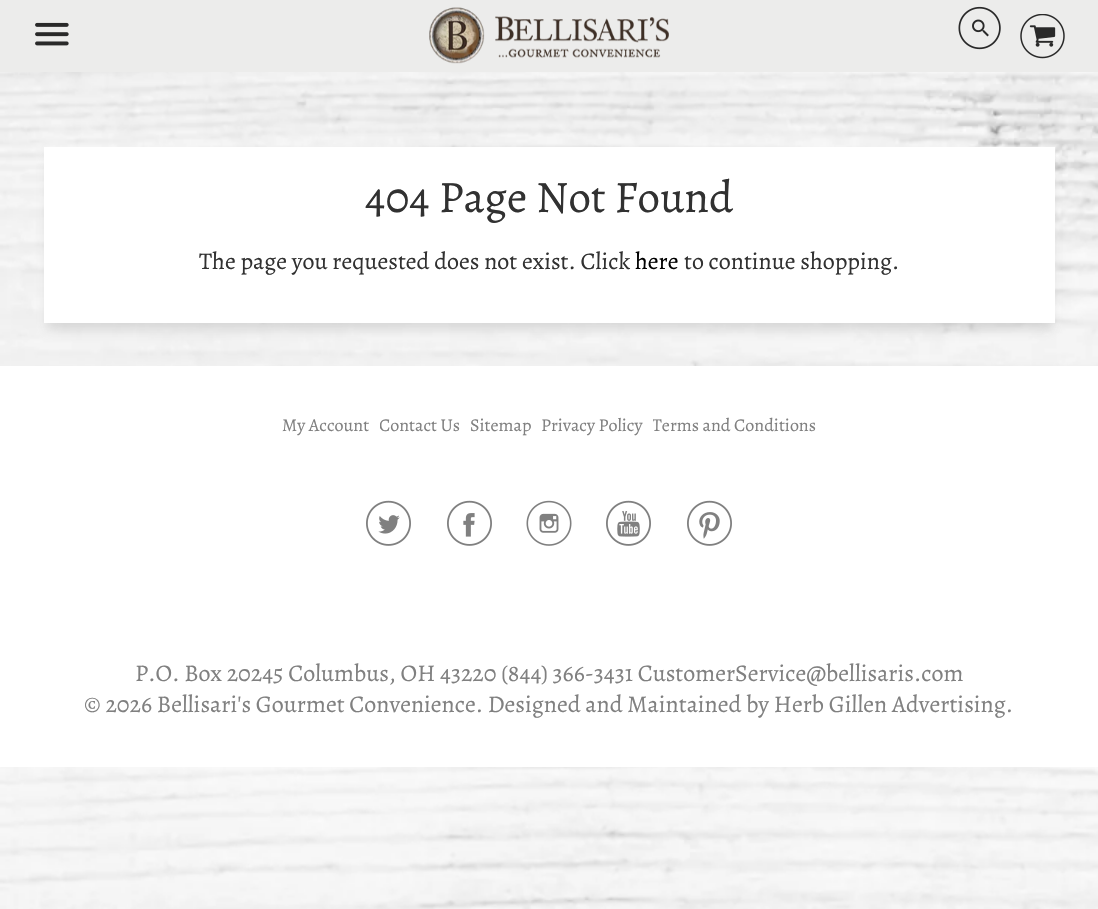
#include "include/core/SkBlurTypes.h"
#include "include/core/SkCanvas.h"
#include "include/core/SkData.h"
#include "include/core/SkFont.h"
#include "include/core/SkFontMgr.h"
#include "include/core/SkImage.h"
#include "include/core/SkMaskFilter.h"
#include "include/core/SkPaint.h"
#include "include/core/SkPathBuilder.h"
#include "include/core/SkTextBlob.h"
#include "include/effects/SkDashPathEffect.h"
#include "include/effects/SkGradientShader.h"
#include "include/utils/SkParsePath.h"

extern sk_sp<SkFontMgr> fontMgr;

void draw(SkCanvas* canvas) {
  SkPaint p;
  p.setAntiAlias(true);
  canvas->clear(SK_ColorWHITE);
  canvas->drawImageRect(SkImages::DeferredFromEncodedData(SkData::MakeFromFileName("images/1.png")), SkRect::MakeLTRB(0, 72, 1098, 909), SkSamplingOptions());
  p.setColor(SkColorSetRGB(236, 236, 235));
  canvas->drawRect(SkRect::MakeLTRB(0, 0, 1098, 72), p);
  canvas->drawImageRect(SkImages::DeferredFromEncodedData(SkData::MakeFromFileName("images/2.png")), SkRect::MakeLTRB(35, 22, 69, 46), SkSamplingOptions());
  canvas->drawImageRect(SkImages::DeferredFromEncodedData(SkData::MakeFromFileName("images/3.png")), SkRect::MakeLTRB(429, 7, 669, 64), SkSamplingOptions());
  canvas->drawImageRect(SkImages::DeferredFromEncodedData(SkData::MakeFromFileName("images/4.png")), SkRect::MakeLTRB(958, 6, 1001, 50), SkSamplingOptions());
  canvas->drawImageRect(SkImages::DeferredFromEncodedData(SkData::MakeFromFileName("images/5.png")), SkRect::MakeLTRB(1020, 14, 1065, 59), SkSamplingOptions());
  p.setColor(SkColorSetARGB(82, 163, 163, 163));
  p.setMaskFilter(SkMaskFilter::MakeBlur(kNormal_SkBlurStyle, 5));
  canvas->drawRect(SkRect::MakeLTRB(47, 161, 1052, 330), p);
  p.setMaskFilter(nullptr);
  p.setColor(SK_ColorWHITE);
  canvas->drawRect(SkRect::MakeLTRB(44, 147, 1055, 323), p);
  canvas->drawRect(SkRect::MakeLTRB(0, 366, 1098, 767), p);
  canvas->drawImageRect(SkImages::DeferredFromEncodedData(SkData::MakeFromFileName("images/6.png")), SkRect::MakeLTRB(366, 500, 411, 546), SkSamplingOptions());
  canvas->drawImageRect(SkImages::DeferredFromEncodedData(SkData::MakeFromFileName("images/7.png")), SkRect::MakeLTRB(447, 500, 492, 546), SkSamplingOptions());
  canvas->drawImageRect(SkImages::DeferredFromEncodedData(SkData::MakeFromFileName("images/8.png")), SkRect::MakeLTRB(526, 500, 572, 546), SkSamplingOptions());
  canvas->drawImageRect(SkImages::DeferredFromEncodedData(SkData::MakeFromFileName("images/9.png")), SkRect::MakeLTRB(606, 500, 651, 546), SkSamplingOptions());
  canvas->drawImageRect(SkImages::DeferredFromEncodedData(SkData::MakeFromFileName("images/10.png")), SkRect::MakeLTRB(687, 500, 732, 546), SkSamplingOptions());
  SkFont font1(fontMgr->matchFamilyStyle("Alegreya", SkFontStyle::Normal()), 45);
  font1.setSubpixel(true);
  p.setColor(SkColorSetRGB(49, 49, 49));
  canvas->drawString("404 Page Not Found", 365, 212, font1, p);
  SkFont font2(fontMgr->matchFamilyStyle("Alegreya", SkFontStyle::Normal()), 24);
  font2.setSubpixel(true);
  canvas->drawString("The page you requested does not exist. Click", 199, 269, font2, p);
  p.setColor(SK_ColorBLACK);
  canvas->drawString("here", 635, 269, font2, p);
  p.setColor(SkColorSetRGB(49, 49, 49));
  canvas->drawString("to continue shopping.", 684, 269, font2, p);
  SkFont font3(fontMgr->matchFamilyStyle("Alegreya", SkFontStyle::Normal()), 18);
  font3.setSubpixel(true);
  p.setColor(SkColorSetRGB(128, 128, 128));
  canvas->drawString("My Account", 282, 431, font3, p);
  canvas->save();
  canvas->clipRect(SkRect::MakeLTRB(380, 416, 461, 438));
  canvas->drawString("Contact Us", 379, 431, font3, p);
  canvas->restore();
  canvas->drawString("Sitemap", 470, 431, font3, p);
  canvas->drawString("Privacy Policy", 541, 431, font3, p);
  canvas->save();
  canvas->clipRect(SkRect::MakeLTRB(653, 416, 816, 438));
  canvas->drawString("Terms and Conditions", 652, 431, font3, p);
  canvas->restore();
  canvas->drawString("P.O. Box 20245 Columbus, OH 43220 (844) 366-3431 CustomerService@bellisaris.com", 135, 681, font2, p);
  canvas->drawString("© 2026 Bellisari's Gourmet Convenience. Designed and Maintained by Herb Gillen Advertising.", 84, 712, font2, p);
}
